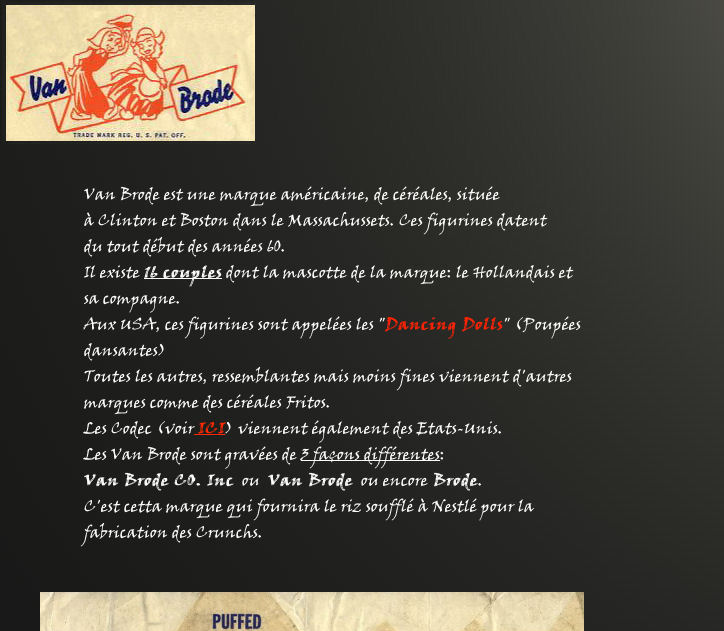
#include "include/core/SkBlurTypes.h"
#include "include/core/SkCanvas.h"
#include "include/core/SkData.h"
#include "include/core/SkFont.h"
#include "include/core/SkFontMgr.h"
#include "include/core/SkImage.h"
#include "include/core/SkMaskFilter.h"
#include "include/core/SkPaint.h"
#include "include/core/SkPathBuilder.h"
#include "include/core/SkTextBlob.h"
#include "include/effects/SkDashPathEffect.h"
#include "include/effects/SkGradientShader.h"
#include "include/utils/SkParsePath.h"

extern sk_sp<SkFontMgr> fontMgr;

void draw(SkCanvas* canvas) {
  SkPaint p;
  p.setAntiAlias(true);
  canvas->clear(SK_ColorWHITE);
  canvas->drawImageRect(SkImages::DeferredFromEncodedData(SkData::MakeFromFileName("images/1.png")), SkRect::MakeLTRB(0, 0, 724, 631), SkSamplingOptions());
}
